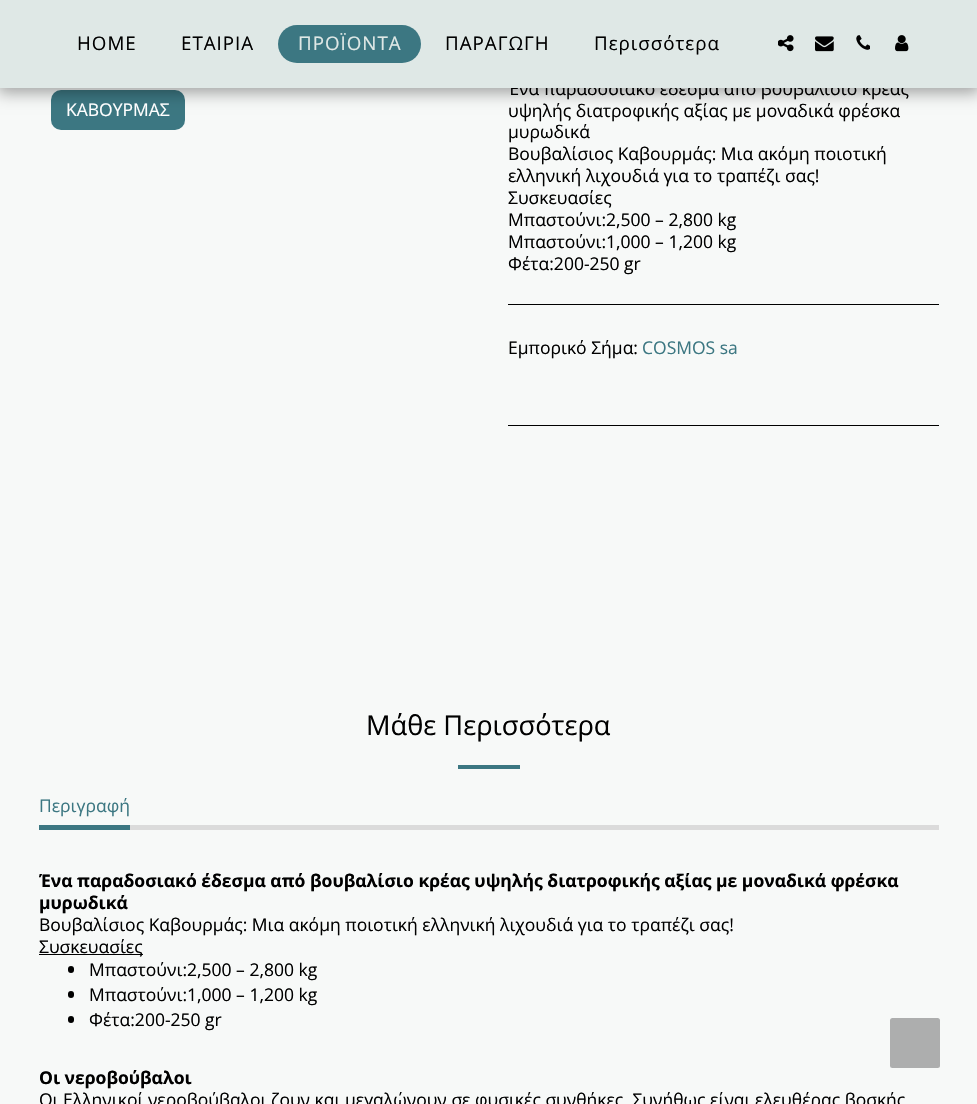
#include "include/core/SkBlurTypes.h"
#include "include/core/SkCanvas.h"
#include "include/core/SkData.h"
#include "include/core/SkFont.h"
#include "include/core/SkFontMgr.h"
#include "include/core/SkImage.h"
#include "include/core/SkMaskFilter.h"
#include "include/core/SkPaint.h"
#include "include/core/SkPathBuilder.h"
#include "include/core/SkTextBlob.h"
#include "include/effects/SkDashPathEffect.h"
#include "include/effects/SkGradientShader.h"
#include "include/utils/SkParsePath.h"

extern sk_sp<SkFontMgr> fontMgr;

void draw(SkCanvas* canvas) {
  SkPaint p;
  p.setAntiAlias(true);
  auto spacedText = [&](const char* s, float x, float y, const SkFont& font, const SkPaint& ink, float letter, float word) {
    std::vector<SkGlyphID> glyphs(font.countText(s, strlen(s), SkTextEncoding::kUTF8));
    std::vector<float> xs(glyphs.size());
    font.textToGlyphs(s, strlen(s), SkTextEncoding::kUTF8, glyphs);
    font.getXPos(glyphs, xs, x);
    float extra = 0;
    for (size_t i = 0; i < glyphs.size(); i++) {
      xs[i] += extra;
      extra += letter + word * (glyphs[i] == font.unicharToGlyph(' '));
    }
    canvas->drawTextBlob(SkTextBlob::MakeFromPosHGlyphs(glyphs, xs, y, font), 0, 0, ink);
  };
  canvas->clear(SkColorSetRGB(247, 249, 248));
  p.setColor(SkColorSetRGB(60, 119, 130));
  canvas->drawRoundRect(SkRect::MakeLTRB(51, 90, 185, 130), 10, 10, p);
  p.setColor(SkColorSetARGB(89, 0, 0, 0));
  p.setMaskFilter(SkMaskFilter::MakeBlur(kNormal_SkBlurStyle, 7.5f));
  canvas->drawRect(SkRect::MakeLTRB(-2, 0, 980, 93), p);
  p.setMaskFilter(nullptr);
  p.setColor(SK_ColorBLACK);
  canvas->drawRect(SkRect::MakeLTRB(508, 304, 939, 305), p);
  canvas->drawRect(SkRect::MakeLTRB(508, 425, 939, 426), p);
  p.setColor(SkColorSetRGB(60, 119, 130));
  canvas->drawRect(SkRect::MakeLTRB(458, 765, 520, 769), p);
  p.setColor(SkColorSetRGB(219, 219, 219));
  canvas->drawRect(SkRect::MakeLTRB(130, 825, 939, 830), p);
  p.setColor(SkColorSetRGB(60, 119, 130));
  canvas->drawRect(SkRect::MakeLTRB(39, 825, 130, 830), p);
  p.setColor(SK_ColorBLACK);
  canvas->drawRect(SkRect::MakeLTRB(39, 954, 143, 955), p);
  canvas->drawRoundRect(SkRect::MakeLTRB(68, 966, 74, 973), 3, 3, p);
  canvas->drawRoundRect(SkRect::MakeLTRB(68, 991, 74, 998), 3, 3, p);
  canvas->drawRoundRect(SkRect::MakeLTRB(68, 1016, 74, 1023), 3, 3, p);
  p.setColor(SkColorSetRGB(173, 174, 174));
  canvas->drawRoundRect(SkRect::MakeLTRB(890, 1018, 940, 1068), 2.5f, 2.5f, p);
  SkFont font1(fontMgr->matchFamilyStyle("Open Sans", SkFontStyle::Normal()), 17.5f);
  font1.setSubpixel(true);
  p.setColor(SK_ColorWHITE);
  canvas->drawString("ΚΑΒΟΥΡΜΑΣ", 66, 116, font1, p);
  p.setColor(SK_ColorBLACK);
  canvas->drawString("Ένα παραδοσιακό έδεσμα από βουβαλίσιο κρέας", 508, 95, font1, p);
  p.setColor(SkColorSetRGB(223, 232, 230));
  canvas->drawRect(SkRect::MakeLTRB(0, 0, 977, 88), p);
  canvas->drawImageRect(SkImages::DeferredFromEncodedData(SkData::MakeFromFileName("images/4.png")), SkRect::MakeLTRB(895, 35, 909, 52), SkSamplingOptions());
  canvas->drawImageRect(SkImages::DeferredFromEncodedData(SkData::MakeFromFileName("images/3.png")), SkRect::MakeLTRB(856, 35, 870, 50), SkSamplingOptions());
  canvas->drawImageRect(SkImages::DeferredFromEncodedData(SkData::MakeFromFileName("images/2.png")), SkRect::MakeLTRB(815, 36, 834, 52), SkSamplingOptions());
  canvas->drawImageRect(SkImages::DeferredFromEncodedData(SkData::MakeFromFileName("images/1.png")), SkRect::MakeLTRB(778, 35, 794, 52), SkSamplingOptions());
  SkFont font2(fontMgr->matchFamilyStyle("Open Sans", SkFontStyle::Normal()), 18.75f);
  font2.setSubpixel(true);
  p.setColor(SK_ColorBLACK);
  spacedText("Περισσότερα", 594, 50, font2, p, 1, 0);
  spacedText("ΠΑΡΑΓΩΓΗ", 445, 50, font2, p, 1, 0);
  p.setColor(SkColorSetRGB(60, 119, 130));
  canvas->drawRoundRect(SkRect::MakeLTRB(278, 25, 421, 63), 19, 19, p);
  p.setColor(SkColorSetRGB(223, 232, 230));
  spacedText("ΠΡΟΪΟΝΤΑ", 298, 50, font2, p, 1, 0);
  p.setColor(SK_ColorBLACK);
  spacedText("ΕΤΑΙΡΙΑ", 181, 50, font2, p, 1, 0);
  spacedText("HOME", 77, 50, font2, p, 1, 0);
  canvas->drawString("υψηλής διατροφικής αξίας με μοναδικά φρέσκα", 508, 117, font1, p);
  canvas->drawString("μυρωδικά", 508, 138, font1, p);
  canvas->drawString("Βουβαλίσιος Καβουρμάς: Μια ακόμη ποιοτική", 508, 160, font1, p);
  canvas->drawString("ελληνική λιχουδιά για το τραπέζι σας!", 508, 182, font1, p);
  canvas->drawString("Συσκευασίες", 508, 204, font1, p);
  canvas->drawString("Μπαστούνι:2,500 – 2,800 kg", 508, 226, font1, p);
  canvas->drawString("Μπαστούνι:1,000 – 1,200 kg", 508, 248, font1, p);
  canvas->drawString("Φέτα:200-250 gr", 508, 270, font1, p);
  canvas->drawString("Εμπορικό Σήμα:", 508, 354, font1, p);
  p.setColor(SkColorSetRGB(60, 119, 130));
  canvas->drawString("COSMOS sa", 642, 354, font1, p);
  SkFont font3(fontMgr->matchFamilyStyle("Open Sans", SkFontStyle::Normal()), 27.25f);
  font3.setSubpixel(true);
  p.setColor(SK_ColorBLACK);
  canvas->drawString("Μάθε Περισσότερα", 366, 735, font3, p);
  p.setColor(SkColorSetRGB(60, 119, 130));
  canvas->drawString("Περιγραφή", 39, 812, font1, p);
  SkFont font4(fontMgr->matchFamilyStyle("Open Sans", SkFontStyle::Bold()), 17.5f);
  font4.setSubpixel(true);
  p.setColor(SK_ColorBLACK);
  canvas->drawString("Ένα παραδοσιακό έδεσμα από βουβαλίσιο κρέας υψηλής διατροφικής αξίας με μοναδικά φρέσκα", 39, 887, font4, p);
  canvas->drawString("μυρωδικά", 39, 909, font4, p);
  canvas->drawString("Βουβαλίσιος Καβουρμάς: Μια ακόμη ποιοτική ελληνική λιχουδιά για το τραπέζι σας!", 39, 931, font1, p);
  canvas->drawString("Συσκευασίες", 39, 953, font1, p);
  canvas->drawString("Μπαστούνι:2,500 – 2,800 kg", 89, 976, font1, p);
  canvas->drawString("Μπαστούνι:1,000 – 1,200 kg", 89, 1001, font1, p);
  canvas->drawString("Φέτα:200-250 gr", 89, 1026, font1, p);
  canvas->drawString("Οι νεροβούβαλοι", 39, 1084, font4, p);
  canvas->drawString("Οι Ελληνικοί νεροβούβαλοι ζουν και μεγαλώνουν σε φυσικές συνθήκες. Συνήθως είναι ελευθέρας βοσκής", 39, 1106, font1, p);
}
